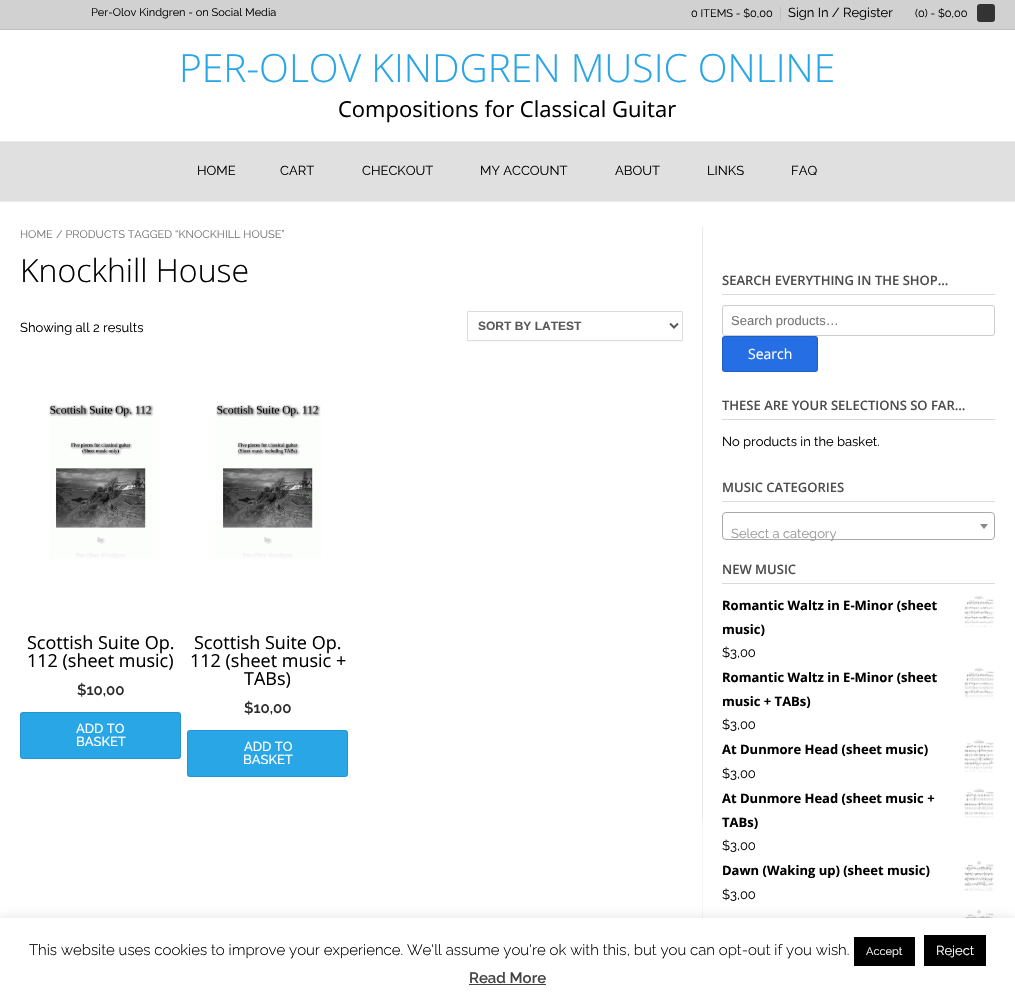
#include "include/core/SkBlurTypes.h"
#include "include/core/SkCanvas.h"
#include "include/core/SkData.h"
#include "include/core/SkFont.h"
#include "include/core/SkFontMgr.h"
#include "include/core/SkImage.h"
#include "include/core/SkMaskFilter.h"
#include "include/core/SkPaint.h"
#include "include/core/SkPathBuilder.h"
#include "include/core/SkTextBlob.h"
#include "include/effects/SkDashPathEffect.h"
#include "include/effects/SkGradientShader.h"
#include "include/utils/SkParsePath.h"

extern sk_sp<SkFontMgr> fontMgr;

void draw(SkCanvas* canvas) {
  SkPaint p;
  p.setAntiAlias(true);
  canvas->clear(SK_ColorWHITE);
  p.setColor(SkColorSetRGB(245, 245, 245));
  canvas->drawRect(SkRect::MakeLTRB(702, 822, 703, 918), p);
  p.setColor(SkColorSetRGB(235, 235, 235));
  canvas->drawRect(SkRect::MakeLTRB(0, 201, 1015, 202), p);
  p.setColor(SkColorSetRGB(209, 209, 209));
  canvas->drawRect(SkRect::MakeLTRB(0, 0, 1015, 29), p);
  p.setColor(SkColorSetRGB(192, 192, 192));
  canvas->drawRect(SkRect::MakeLTRB(0, 29, 1015, 30), p);
  canvas->drawRect(SkRect::MakeLTRB(780, 7, 781, 21), p);
  p.setColor(SkColorSetRGB(51, 51, 51));
  canvas->drawRoundRect(SkRect::MakeLTRB(977, 4, 995, 22), 3, 3, p);
  p.setColor(SkColorSetRGB(235, 235, 235));
  canvas->drawRect(SkRect::MakeLTRB(0, 141, 1015, 142), p);
  p.setColor(SkColorSetRGB(224, 224, 224));
  canvas->drawRect(SkRect::MakeLTRB(0, 142, 1015, 201), p);
  p.setColor(SkColorSetRGB(235, 235, 235));
  canvas->drawRect(SkRect::MakeLTRB(702, 227, 703, 822), p);
  p.setColor(SkColorSetRGB(250, 250, 250));
  canvas->drawPath(SkPathBuilder().moveTo(467, 340).lineTo(467, 342).lineTo(468, 342).lineTo(682, 342).cubicTo(683, 342, 683, 341, 683, 340).lineTo(682, 341).lineTo(468, 341).close().detach(), p);
  p.setStyle(SkPaint::kStroke_Style);
  p.setStrokeWidth(1);
  p.setColor(SkColorSetRGB(220, 220, 220));
  canvas->drawRoundRect(SkRect::MakeLTRB(467.5f, 311.5f, 682.5f, 340.5f), 0.5f, 0.5f, p);
  p.setStrokeWidth(2);
  p.setColor(SkColorSetRGB(89, 89, 89));
  canvas->drawPath(SkPathBuilder().moveTo(670, 323.5f).lineTo(674, 327.5f).lineTo(678, 323.5f).detach(), p);
  canvas->drawImageRect(SkImages::DeferredFromEncodedData(SkData::MakeFromFileName("images/1.png")), SkRect::MakeLTRB(49, 404, 154, 559), SkSamplingOptions());
  p.setStyle(SkPaint::kFill_Style);
  p.setColor(SkColorSetRGB(41, 166, 229));
  canvas->drawRoundRect(SkRect::MakeLTRB(20, 712, 181, 759), 3, 3, p);
  p.setStyle(SkPaint::kStroke_Style);
  p.setStrokeWidth(1);
  p.setColor(SkColorSetARGB(26, 0, 0, 0));
  canvas->drawRoundRect(SkRect::MakeLTRB(20.5f, 712.5f, 180.5f, 758.5f), 2.5f, 2.5f, p);
  canvas->drawImageRect(SkImages::DeferredFromEncodedData(SkData::MakeFromFileName("images/2.png")), SkRect::MakeLTRB(216, 404, 321, 559), SkSamplingOptions());
  p.setStyle(SkPaint::kFill_Style);
  p.setColor(SkColorSetRGB(41, 166, 229));
  canvas->drawRoundRect(SkRect::MakeLTRB(187, 730, 348, 777), 3, 3, p);
  p.setStyle(SkPaint::kStroke_Style);
  p.setColor(SkColorSetARGB(26, 0, 0, 0));
  canvas->drawRoundRect(SkRect::MakeLTRB(187.5f, 730.5f, 347.5f, 776.5f), 2.5f, 2.5f, p);
  p.setStyle(SkPaint::kFill_Style);
  p.setColor(SkColorSetRGB(219, 219, 219));
  canvas->drawRect(SkRect::MakeLTRB(722, 294, 995, 295), p);
  p.setStyle(SkPaint::kStroke_Style);
  p.setColor(SkColorSetRGB(204, 204, 204));
  canvas->drawRoundRect(SkRect::MakeLTRB(722.5f, 305.5f, 994.5f, 335.5f), 2.5f, 2.5f, p);
  p.setStyle(SkPaint::kFill_Style);
  p.setColor(SkColorSetRGB(38, 110, 228));
  canvas->drawRoundRect(SkRect::MakeLTRB(722, 336, 818, 372), 3, 3, p);
  p.setStyle(SkPaint::kStroke_Style);
  p.setColor(SkColorSetARGB(36, 0, 0, 0));
  canvas->drawRoundRect(SkRect::MakeLTRB(722.5f, 336.5f, 817.5f, 371.5f), 2.5f, 2.5f, p);
  p.setStyle(SkPaint::kFill_Style);
  p.setColor(SkColorSetRGB(219, 219, 219));
  canvas->drawRect(SkRect::MakeLTRB(722, 419, 995, 420), p);
  canvas->drawRect(SkRect::MakeLTRB(722, 501, 995, 502), p);
  p.setStyle(SkPaint::kStroke_Style);
  p.setColor(SkColorSetRGB(170, 170, 170));
  canvas->drawRoundRect(SkRect::MakeLTRB(722.5f, 512.5f, 994.5f, 539.5f), 3.5f, 3.5f, p);
  p.setStyle(SkPaint::kFill_Style);
  p.setColor(SkColorSetRGB(136, 136, 136));
  canvas->drawPath(SkPathBuilder().moveTo(980, 524).lineTo(988, 524).lineTo(984, 529).close().detach(), p);
  p.setColor(SkColorSetRGB(219, 219, 219));
  canvas->drawRect(SkRect::MakeLTRB(722, 583, 995, 584), p);
  canvas->drawImageRect(SkImages::DeferredFromEncodedData(SkData::MakeFromFileName("images/3.png")), SkRect::MakeLTRB(964, 595, 994, 627), SkSamplingOptions());
  canvas->drawImageRect(SkImages::DeferredFromEncodedData(SkData::MakeFromFileName("images/4.png")), SkRect::MakeLTRB(964, 667, 994, 700), SkSamplingOptions());
  canvas->drawImageRect(SkImages::DeferredFromEncodedData(SkData::MakeFromFileName("images/5.png")), SkRect::MakeLTRB(964, 739, 994, 772), SkSamplingOptions());
  canvas->drawImageRect(SkImages::DeferredFromEncodedData(SkData::MakeFromFileName("images/6.png")), SkRect::MakeLTRB(964, 788, 994, 818), SkSamplingOptions());
  canvas->drawImageRect(SkImages::DeferredFromEncodedData(SkData::MakeFromFileName("images/7.png")), SkRect::MakeLTRB(964, 860, 994, 892), SkSamplingOptions());
  canvas->drawImageRect(SkImages::DeferredFromEncodedData(SkData::MakeFromFileName("images/8.png")), SkRect::MakeLTRB(964, 909, 994, 918), SkSamplingOptions());
  p.setColor(SkColorSetARGB(77, 172, 171, 171));
  p.setMaskFilter(SkMaskFilter::MakeBlur(kNormal_SkBlurStyle, 5));
  canvas->drawRect(SkRect::MakeLTRB(0, 917, 1015, 1000), p);
  p.setMaskFilter(nullptr);
  p.setColor(SK_ColorWHITE);
  canvas->drawRect(SkRect::MakeLTRB(0, 918, 1015, 1001), p);
  p.setColor(SK_ColorBLACK);
  canvas->drawRect(SkRect::MakeLTRB(854, 937, 915, 966), p);
  canvas->drawRect(SkRect::MakeLTRB(924, 935, 986, 966), p);
  p.setColor(SkColorSetRGB(68, 68, 68));
  canvas->drawRect(SkRect::MakeLTRB(469, 984, 546, 985), p);
  SkFont font1(fontMgr->matchFamilyStyle("Raleway", SkFontStyle::Normal()), 11);
  font1.setSubpixel(true);
  p.setColor(SK_ColorBLACK);
  canvas->drawString("Per-Olov Kindgren - on Social Media", 91, 16, font1, p);
  canvas->drawString("0 ITEMS - $0,00", 691, 17, font1, p);
  SkFont font2(fontMgr->matchFamilyStyle("Raleway", SkFontStyle::Normal()), 13);
  font2.setSubpixel(true);
  canvas->drawString("Sign In / Register", 788, 17, font2, p);
  canvas->drawString("(0) - $0,00", 915, 17, font1, p);
  SkFont font3(fontMgr->matchFamilyStyle("Open Sans", SkFontStyle(300, SkFontStyle::kNormal_Width, SkFontStyle::kUpright_Slant)), 39);
  font3.setSubpixel(true);
  p.setColor(SkColorSetRGB(41, 166, 229));
  canvas->drawString("PER-OLOV KINDGREN MUSIC ONLINE", 179, 82, font3, p);
  SkFont font4(fontMgr->matchFamilyStyle("Open Sans", SkFontStyle::Normal()), 22);
  font4.setSubpixel(true);
  p.setColor(SK_ColorBLACK);
  canvas->drawString("Compositions for Classical Guitar", 338, 117, font4, p);
  canvas->drawString("HOME", 197, 175, font2, p);
  canvas->drawString("CART", 280, 175, font2, p);
  canvas->drawString("CHECKOUT", 362, 175, font2, p);
  canvas->drawString("MY ACCOUNT", 480, 175, font2, p);
  canvas->drawString("ABOUT", 615, 175, font2, p);
  canvas->drawString("LINKS", 707, 175, font2, p);
  canvas->drawString("FAQ", 791, 175, font2, p);
  p.setColor(SkColorSetRGB(118, 118, 118));
  canvas->drawString("HOME", 20, 238, font1, p);
  canvas->drawString("/ PRODUCTS TAGGED “KNOCKHILL HOUSE”", 56, 238, font1, p);
  SkFont font5(fontMgr->matchFamilyStyle("Open Sans", SkFontStyle(300, SkFontStyle::kNormal_Width, SkFontStyle::kUpright_Slant)), 32);
  font5.setSubpixel(true);
  p.setColor(SK_ColorBLACK);
  canvas->drawString("Knockhill House", 20, 282, font5, p);
  canvas->drawString("Showing all 2 results", 20, 332, font2, p);
  SkFont font6(fontMgr->matchFamilyStyle("Liberation Sans", SkFontStyle::Bold()), 12);
  font6.setSubpixel(true);
  p.setColor(SkColorSetRGB(89, 89, 89));
  canvas->drawString("SORT BY LATEST", 478, 330, font6, p);
  SkFont font7(fontMgr->matchFamilyStyle("Open Sans", SkFontStyle::Normal()), 18);
  font7.setSubpixel(true);
  p.setColor(SK_ColorBLACK);
  canvas->drawString("Scottish Suite Op.", 27, 649, font7, p);
  canvas->drawString("112 (sheet music)", 27, 667, font7, p);
  SkFont font8(fontMgr->matchFamilyStyle("Raleway", SkFontStyle(600, SkFontStyle::kNormal_Width, SkFontStyle::kUpright_Slant)), 15);
  font8.setSubpixel(true);
  p.setColor(SkColorSetRGB(45, 45, 45));
  canvas->drawString("$10,00", 77, 695, font8, p);
  SkFont font9(fontMgr->matchFamilyStyle("Raleway", SkFontStyle(500, SkFontStyle::kNormal_Width, SkFontStyle::kUpright_Slant)), 13);
  font9.setSubpixel(true);
  p.setColor(SK_ColorWHITE);
  canvas->drawString("ADD TO", 76, 733, font9, p);
  canvas->drawString("BASKET", 76, 746, font9, p);
  p.setColor(SK_ColorBLACK);
  canvas->drawString("Scottish Suite Op.", 194, 649, font7, p);
  canvas->drawString("112 (sheet music +", 190, 667, font7, p);
  canvas->drawString("TABs)", 244, 685, font7, p);
  p.setColor(SkColorSetRGB(45, 45, 45));
  canvas->drawString("$10,00", 244, 713, font8, p);
  p.setColor(SK_ColorWHITE);
  canvas->drawString("ADD TO", 244, 751, font9, p);
  canvas->drawString("BASKET", 243, 764, font9, p);
  SkFont font10(fontMgr->matchFamilyStyle("Open Sans", SkFontStyle(600, SkFontStyle::kNormal_Width, SkFontStyle::kUpright_Slant)), 13);
  font10.setSubpixel(true);
  p.setColor(SkColorSetRGB(77, 77, 77));
  canvas->drawString("SEARCH EVERYTHING IN THE SHOP…", 722, 285, font10, p);
  SkFont font11(fontMgr->matchFamilyStyle("Liberation Sans", SkFontStyle::Normal()), 13);
  font11.setSubpixel(true);
  p.setColor(SkColorSetRGB(118, 118, 118));
  canvas->drawString("Search products…", 731, 325, font11, p);
  SkFont font12(fontMgr->matchFamilyStyle("Open Sans", SkFontStyle::Normal()), 14);
  font12.setSubpixel(true);
  p.setColor(SK_ColorWHITE);
  canvas->drawString("Search", 748, 359, font12, p);
  p.setColor(SkColorSetRGB(77, 77, 77));
  canvas->drawString("THESE ARE YOUR SELECTIONS SO FAR…", 722, 410, font10, p);
  p.setColor(SK_ColorBLACK);
  canvas->drawString("No products in the basket.", 722, 446, font2, p);
  p.setColor(SkColorSetRGB(77, 77, 77));
  canvas->drawString("MUSIC CATEGORIES", 722, 492, font10, p);
  p.setColor(SkColorSetRGB(153, 153, 153));
  canvas->drawString("Select a category", 731, 538, font2, p);
  p.setColor(SkColorSetRGB(77, 77, 77));
  canvas->drawString("NEW MUSIC", 722, 574, font10, p);
  SkFont font13(fontMgr->matchFamilyStyle("Open Sans", SkFontStyle::Bold()), 13);
  font13.setSubpixel(true);
  p.setColor(SK_ColorBLACK);
  canvas->drawString("Romantic Waltz in E-Minor (sheet", 722, 610, font13, p);
  canvas->drawString("music)", 722, 634, font13, p);
  canvas->drawString("$3,00", 722, 657, font2, p);
  canvas->drawString("Romantic Waltz in E-Minor (sheet", 722, 682, font13, p);
  canvas->drawString("music + TABs)", 722, 706, font13, p);
  canvas->drawString("$3,00", 722, 729, font2, p);
  canvas->drawString("At Dunmore Head (sheet music)", 722, 754, font13, p);
  canvas->drawString("$3,00", 722, 778, font2, p);
  canvas->drawString("At Dunmore Head (sheet music +", 722, 803, font13, p);
  canvas->drawString("TABs)", 722, 827, font13, p);
  canvas->drawString("$3,00", 722, 850, font2, p);
  canvas->drawString("Dawn (Waking up) (sheet music)", 722, 875, font13, p);
  canvas->drawString("$3,00", 722, 899, font2, p);
  SkFont font14(fontMgr->matchFamilyStyle("Raleway", SkFontStyle(300, SkFontStyle::kNormal_Width, SkFontStyle::kUpright_Slant)), 15);
  font14.setSubpixel(true);
  canvas->drawString("This website uses cookies to improve your experience. We'll assume you're ok with this, but you can opt-out if you wish.", 29, 955, font14, p);
  p.setColor(SK_ColorWHITE);
  canvas->drawString("Accept", 866, 955, font1, p);
  canvas->drawString("Reject", 936, 955, font2, p);
  p.setColor(SkColorSetRGB(68, 68, 68));
  canvas->drawString("Read More", 469, 983, font8, p);
}
